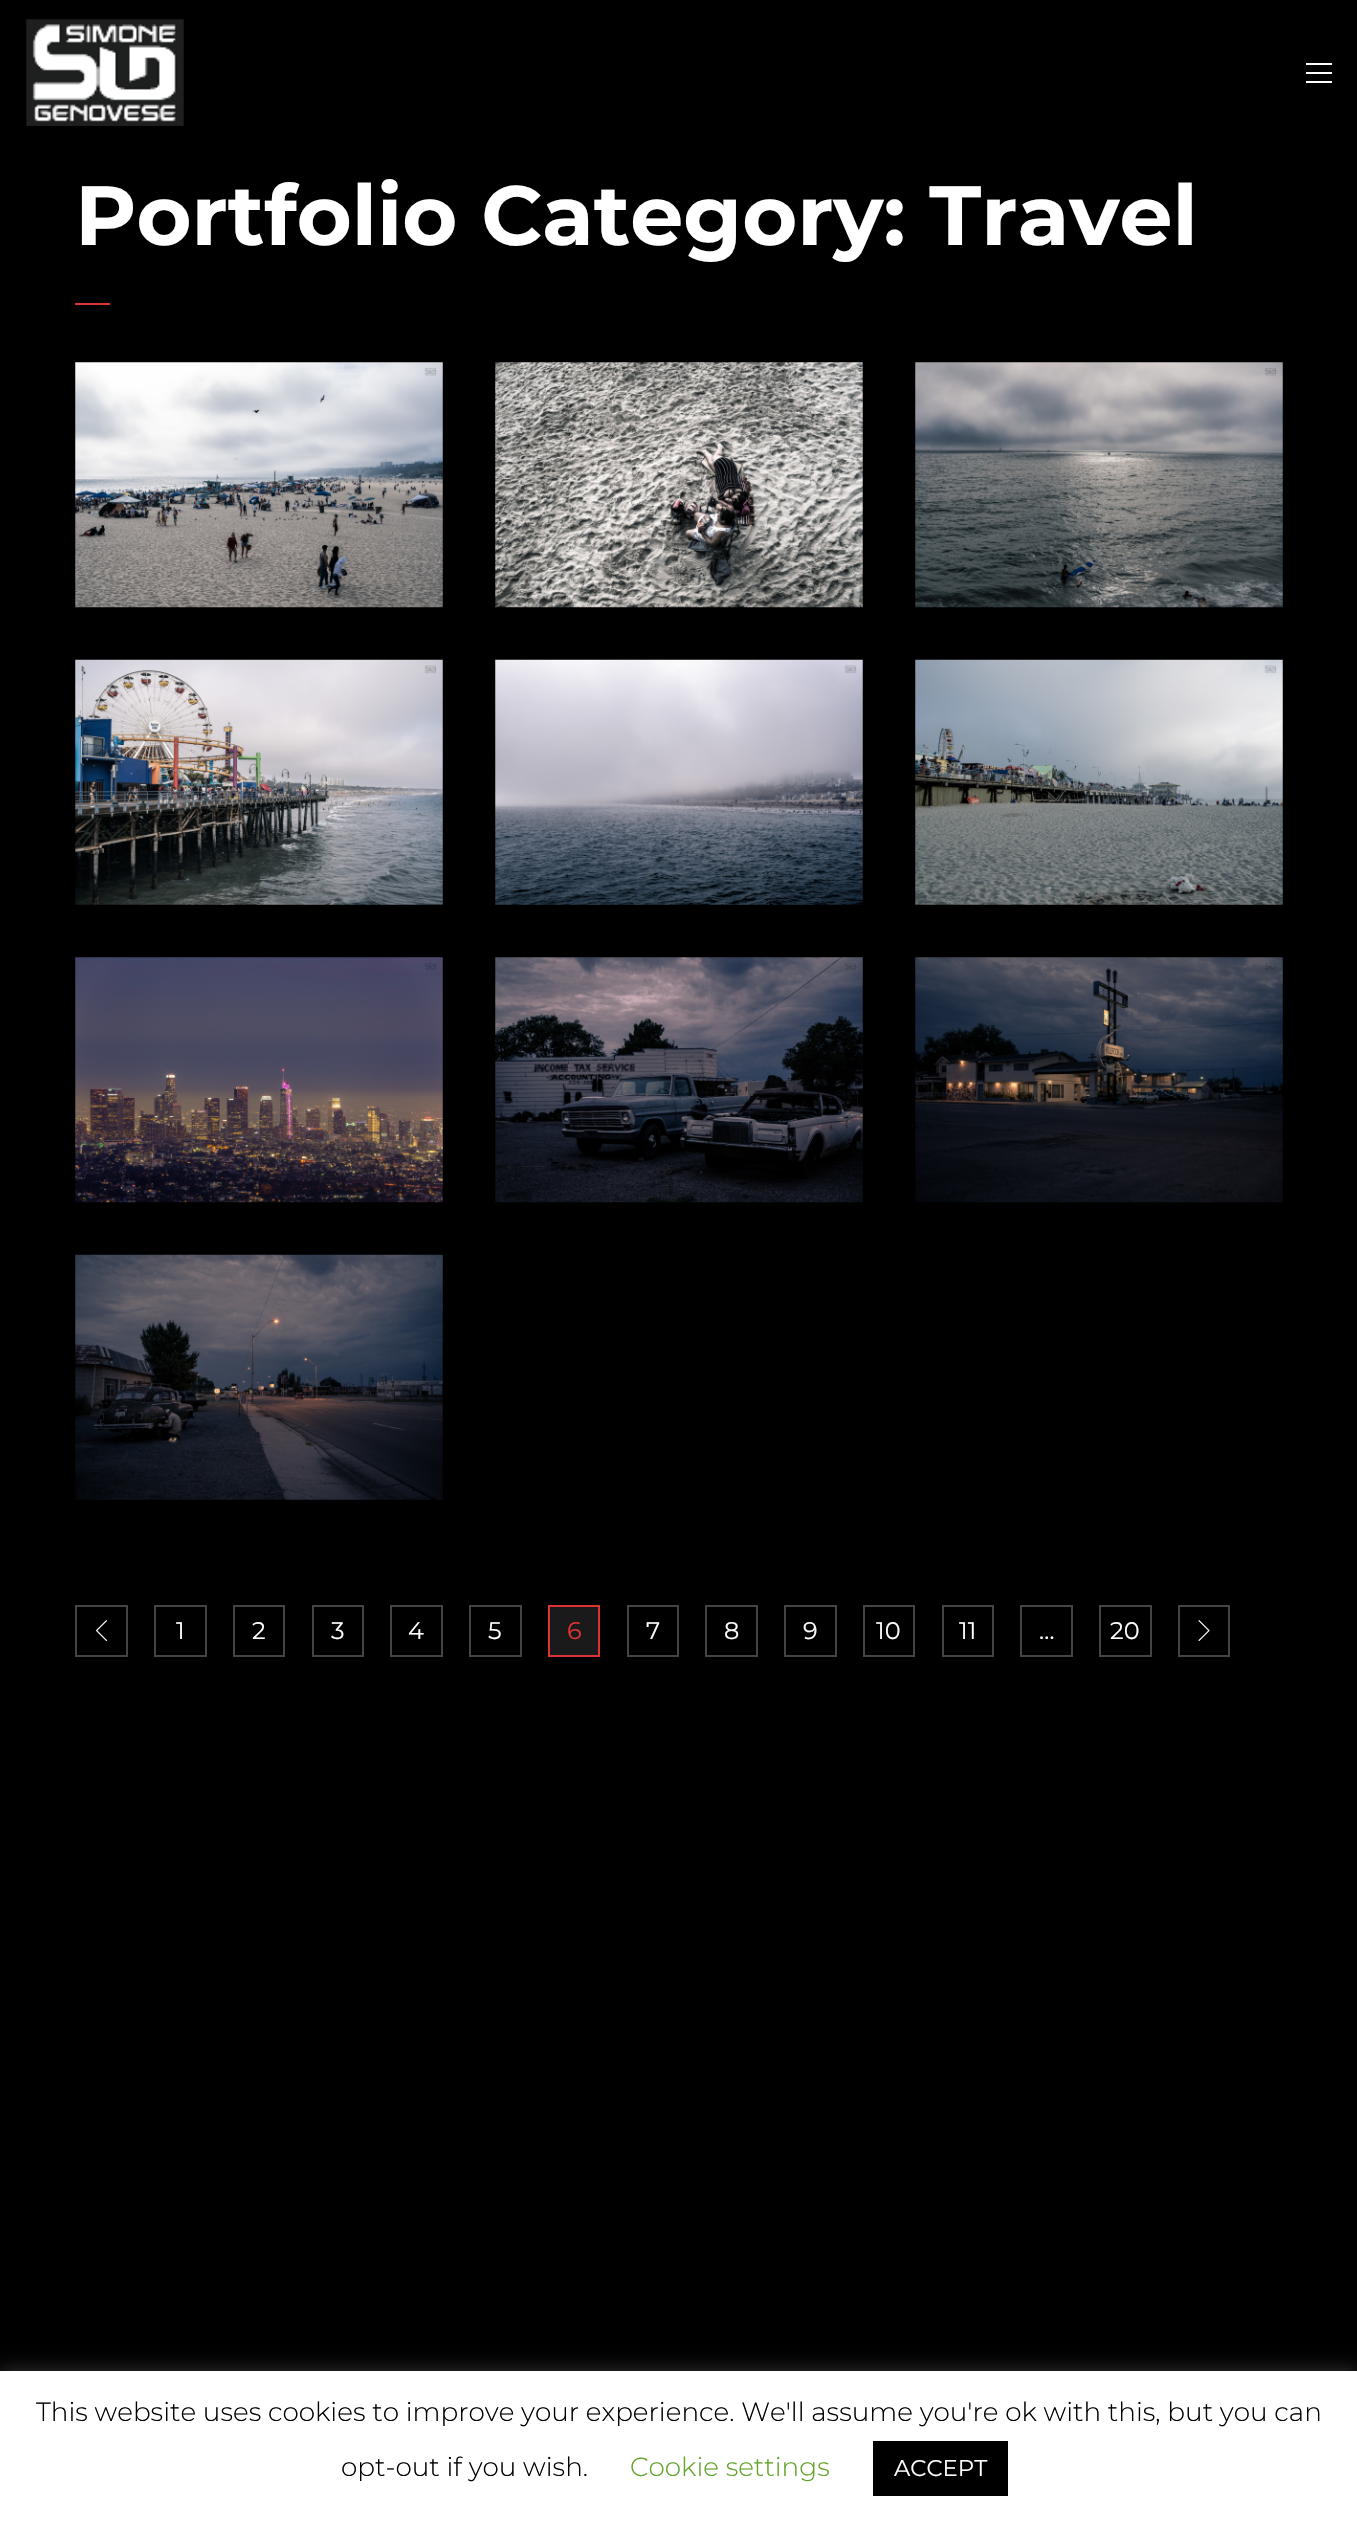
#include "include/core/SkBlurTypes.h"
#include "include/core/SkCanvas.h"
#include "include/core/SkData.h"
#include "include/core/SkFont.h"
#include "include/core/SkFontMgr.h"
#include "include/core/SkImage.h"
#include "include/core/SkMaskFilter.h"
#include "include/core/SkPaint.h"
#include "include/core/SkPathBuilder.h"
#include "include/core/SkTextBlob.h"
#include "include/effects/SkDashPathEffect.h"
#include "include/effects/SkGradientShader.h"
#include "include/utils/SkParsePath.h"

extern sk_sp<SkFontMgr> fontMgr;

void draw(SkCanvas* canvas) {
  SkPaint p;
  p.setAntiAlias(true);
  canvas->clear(SK_ColorBLACK);
  canvas->drawImageRect(SkImages::DeferredFromEncodedData(SkData::MakeFromFileName("images/1.png")), SkRect::MakeLTRB(26, 19, 184, 126), SkSamplingOptions());
  p.setColor(SK_ColorWHITE);
  canvas->drawRect(SkRect::MakeLTRB(1306, 63, 1332, 65), p);
  canvas->drawRect(SkRect::MakeLTRB(1306, 72, 1332, 74), p);
  canvas->drawRect(SkRect::MakeLTRB(1306, 81, 1332, 83), p);
  p.setColor(SkColorSetRGB(221, 51, 51));
  canvas->drawRect(SkRect::MakeLTRB(75, 303, 110, 305), p);
  canvas->drawImageRect(SkImages::DeferredFromEncodedData(SkData::MakeFromFileName("images/2.png")), SkRect::MakeLTRB(75, 362, 443, 608), SkSamplingOptions());
  canvas->drawImageRect(SkImages::DeferredFromEncodedData(SkData::MakeFromFileName("images/3.png")), SkRect::MakeLTRB(495, 362, 863, 608), SkSamplingOptions());
  canvas->drawImageRect(SkImages::DeferredFromEncodedData(SkData::MakeFromFileName("images/4.png")), SkRect::MakeLTRB(915, 362, 1283, 608), SkSamplingOptions());
  canvas->drawImageRect(SkImages::DeferredFromEncodedData(SkData::MakeFromFileName("images/5.png")), SkRect::MakeLTRB(75, 659, 443, 905), SkSamplingOptions());
  canvas->drawImageRect(SkImages::DeferredFromEncodedData(SkData::MakeFromFileName("images/6.png")), SkRect::MakeLTRB(495, 659, 863, 905), SkSamplingOptions());
  canvas->drawImageRect(SkImages::DeferredFromEncodedData(SkData::MakeFromFileName("images/7.png")), SkRect::MakeLTRB(915, 659, 1283, 905), SkSamplingOptions());
  canvas->drawImageRect(SkImages::DeferredFromEncodedData(SkData::MakeFromFileName("images/8.png")), SkRect::MakeLTRB(75, 957, 443, 1203), SkSamplingOptions());
  canvas->drawImageRect(SkImages::DeferredFromEncodedData(SkData::MakeFromFileName("images/9.png")), SkRect::MakeLTRB(495, 957, 863, 1203), SkSamplingOptions());
  canvas->drawImageRect(SkImages::DeferredFromEncodedData(SkData::MakeFromFileName("images/10.png")), SkRect::MakeLTRB(915, 957, 1283, 1203), SkSamplingOptions());
  canvas->drawImageRect(SkImages::DeferredFromEncodedData(SkData::MakeFromFileName("images/11.png")), SkRect::MakeLTRB(75, 1254, 443, 1500), SkSamplingOptions());
  p.setStyle(SkPaint::kStroke_Style);
  p.setStrokeWidth(2);
  p.setColor(SkColorSetRGB(68, 68, 68));
  canvas->drawRect(SkRect::MakeLTRB(76, 1606, 127, 1656), p);
  canvas->drawImageRect(SkImages::DeferredFromEncodedData(SkData::MakeFromFileName("images/12.png")), SkRect::MakeLTRB(96, 1620, 107, 1642), SkSamplingOptions());
  canvas->drawRect(SkRect::MakeLTRB(155, 1606, 206, 1656), p);
  canvas->drawRect(SkRect::MakeLTRB(234, 1606, 284, 1656), p);
  canvas->drawRect(SkRect::MakeLTRB(313, 1606, 363, 1656), p);
  canvas->drawRect(SkRect::MakeLTRB(391, 1606, 442, 1656), p);
  canvas->drawRect(SkRect::MakeLTRB(470, 1606, 521, 1656), p);
  p.setStyle(SkPaint::kFill_Style);
  p.setColor(SkColorSetRGB(26, 26, 26));
  canvas->drawRect(SkRect::MakeLTRB(549, 1606, 599, 1656), p);
  p.setStyle(SkPaint::kStroke_Style);
  p.setColor(SkColorSetRGB(221, 51, 51));
  canvas->drawRect(SkRect::MakeLTRB(549, 1606, 599, 1656), p);
  p.setColor(SkColorSetRGB(68, 68, 68));
  canvas->drawRect(SkRect::MakeLTRB(628, 1606, 678, 1656), p);
  canvas->drawRect(SkRect::MakeLTRB(706, 1606, 757, 1656), p);
  canvas->drawRect(SkRect::MakeLTRB(785, 1606, 836, 1656), p);
  canvas->drawRect(SkRect::MakeLTRB(864, 1606, 914, 1656), p);
  canvas->drawRect(SkRect::MakeLTRB(943, 1606, 993, 1656), p);
  canvas->drawRect(SkRect::MakeLTRB(1021, 1606, 1072, 1656), p);
  canvas->drawRect(SkRect::MakeLTRB(1100, 1606, 1151, 1656), p);
  canvas->drawRect(SkRect::MakeLTRB(1179, 1606, 1229, 1656), p);
  canvas->drawImageRect(SkImages::DeferredFromEncodedData(SkData::MakeFromFileName("images/13.png")), SkRect::MakeLTRB(1198, 1620, 1210, 1641), SkSamplingOptions());
  p.setStyle(SkPaint::kFill_Style);
  p.setColor(SkColorSetARGB(77, 172, 171, 171));
  p.setMaskFilter(SkMaskFilter::MakeBlur(kNormal_SkBlurStyle, 9));
  canvas->drawRect(SkRect::MakeLTRB(0, 2370, 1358, 2524), p);
  p.setMaskFilter(nullptr);
  p.setColor(SK_ColorWHITE);
  canvas->drawRect(SkRect::MakeLTRB(0, 2371, 1357, 2524), p);
  p.setColor(SK_ColorBLACK);
  canvas->drawRect(SkRect::MakeLTRB(873, 2441, 1008, 2496), p);
  SkFont font1(fontMgr->matchFamilyStyle("Montserrat", SkFontStyle::Bold()), 84);
  font1.setSubpixel(true);
  p.setColor(SK_ColorWHITE);
  canvas->drawString("Portfolio Category: Travel", 75, 245, font1, p);
  SkFont font2(fontMgr->matchFamilyStyle("Montserrat", SkFontStyle::Normal()), 24);
  font2.setSubpixel(true);
  canvas->drawString("1", 176, 1639, font2, p);
  canvas->drawString("2", 252, 1639, font2, p);
  canvas->drawString("3", 331, 1639, font2, p);
  canvas->drawString("4", 408, 1639, font2, p);
  canvas->drawString("5", 488, 1639, font2, p);
  p.setColor(SkColorSetRGB(221, 51, 51));
  canvas->drawString("6", 567, 1639, font2, p);
  p.setColor(SK_ColorWHITE);
  canvas->drawString("7", 646, 1639, font2, p);
  canvas->drawString("8", 724, 1639, font2, p);
  canvas->drawString("9", 803, 1639, font2, p);
  canvas->drawString("10", 876, 1639, font2, p);
  canvas->drawString("11", 959, 1639, font2, p);
  canvas->drawString("…", 1039, 1639, font2, p);
  canvas->drawString("20", 1110, 1639, font2, p);
  SkFont font3(fontMgr->matchFamilyStyle("Montserrat", SkFontStyle(300, SkFontStyle::kNormal_Width, SkFontStyle::kUpright_Slant)), 26.25f);
  font3.setSubpixel(true);
  p.setColor(SK_ColorBLACK);
  canvas->drawString("This website uses cookies to improve your experience. We'll assume you're ok with this, but you can", 36, 2421, font3, p);
  canvas->drawString("opt-out if you wish.", 341, 2476, font3, p);
  p.setColor(SkColorSetRGB(98, 163, 41));
  canvas->drawString("Cookie settings", 630, 2476, font3, p);
  SkFont font4(fontMgr->matchFamilyStyle("Montserrat", SkFontStyle::Normal()), 22.75f);
  font4.setSubpixel(true);
  p.setColor(SK_ColorWHITE);
  canvas->drawString("ACCEPT", 894, 2476, font4, p);
}
